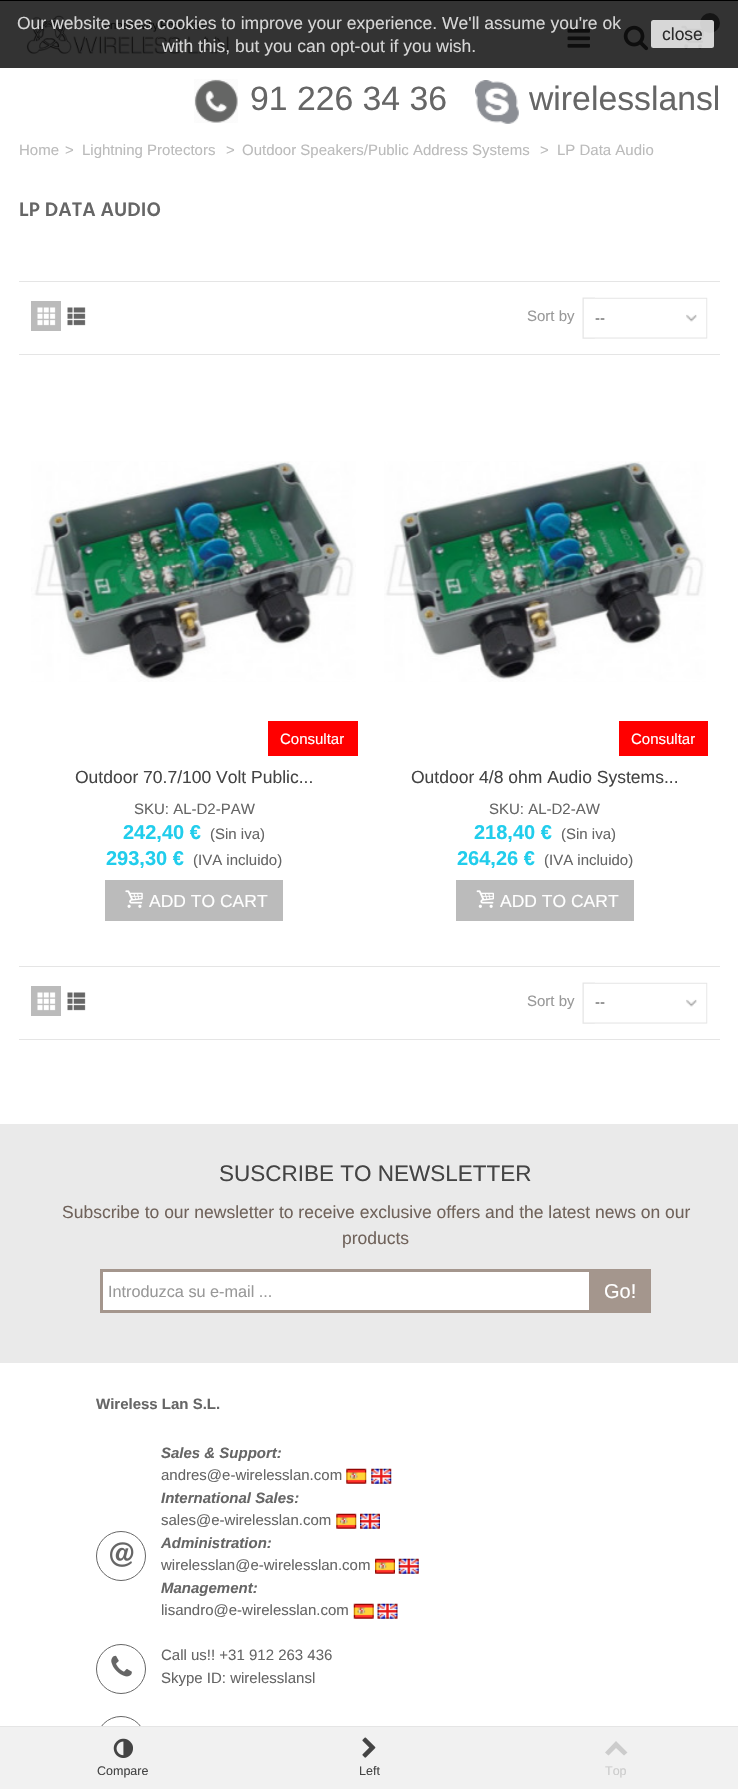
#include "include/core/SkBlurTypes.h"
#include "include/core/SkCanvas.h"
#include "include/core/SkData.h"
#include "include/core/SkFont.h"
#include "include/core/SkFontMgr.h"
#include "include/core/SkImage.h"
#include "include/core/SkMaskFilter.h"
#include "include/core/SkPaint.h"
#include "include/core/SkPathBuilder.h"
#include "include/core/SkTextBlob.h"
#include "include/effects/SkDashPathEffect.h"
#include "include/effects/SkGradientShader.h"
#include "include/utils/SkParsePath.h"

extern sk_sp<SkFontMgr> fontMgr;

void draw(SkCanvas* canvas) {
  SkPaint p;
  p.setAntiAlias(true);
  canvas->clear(SK_ColorWHITE);
  canvas->drawImageRect(SkImages::DeferredFromEncodedData(SkData::MakeFromFileName("images/1.png")), SkRect::MakeLTRB(26, 15, 230, 54), SkSamplingOptions());
  canvas->drawImageRect(SkImages::DeferredFromEncodedData(SkData::MakeFromFileName("images/2.png")), SkRect::MakeLTRB(567, 28, 590, 48), SkSamplingOptions());
  canvas->drawImageRect(SkImages::DeferredFromEncodedData(SkData::MakeFromFileName("images/3.png")), SkRect::MakeLTRB(623, 25, 649, 51), SkSamplingOptions());
  canvas->drawImageRect(SkImages::DeferredFromEncodedData(SkData::MakeFromFileName("images/4.png")), SkRect::MakeLTRB(681, 25, 704, 49), SkSamplingOptions());
  p.setColor(SkColorSetRGB(102, 102, 102));
  canvas->drawCircle(710, 23, 10, p);
  p.setColor(SkColorSetARGB(204, 0, 0, 0));
  canvas->drawRect(SkRect::MakeLTRB(0, 1, 738, 68), p);
  p.setColor(SkColorSetARGB(204, 255, 255, 255));
  canvas->drawRoundRect(SkRect::MakeLTRB(651, 20, 714, 48), 2.5f, 2.5f, p);
  p.setColor(SK_ColorBLACK);
  canvas->drawRect(SkRect::MakeLTRB(0, 0, 738, 1), p);
  canvas->drawImageRect(SkImages::DeferredFromEncodedData(SkData::MakeFromFileName("images/5.png")), SkRect::MakeLTRB(194, 79, 238, 123), SkSamplingOptions());
  canvas->drawImageRect(SkImages::DeferredFromEncodedData(SkData::MakeFromFileName("images/6.png")), SkRect::MakeLTRB(475, 80, 519, 124), SkSamplingOptions());
  p.setColor(SkColorSetRGB(229, 229, 229));
  canvas->drawRect(SkRect::MakeLTRB(19, 281, 720, 282), p);
  canvas->drawRect(SkRect::MakeLTRB(19, 354, 720, 355), p);
  p.setColor(SkColorSetRGB(187, 187, 187));
  canvas->drawRect(SkRect::MakeLTRB(31, 301, 61, 331), p);
  canvas->drawImageRect(SkImages::DeferredFromEncodedData(SkData::MakeFromFileName("images/7.png")), SkRect::MakeLTRB(37, 307, 56, 326), SkSamplingOptions());
  canvas->drawImageRect(SkImages::DeferredFromEncodedData(SkData::MakeFromFileName("images/8.png")), SkRect::MakeLTRB(67, 307, 86, 326), SkSamplingOptions());
  canvas->drawImageRect(SkImages::DeferredFromEncodedData(SkData::MakeFromFileName("images/9.png")), SkRect::MakeLTRB(582, 297, 595, 339), SkSamplingOptions());
  canvas->drawImageRect(SkImages::DeferredFromEncodedData(SkData::MakeFromFileName("images/10.png")), SkRect::MakeLTRB(595, 297, 708, 339), SkSamplingOptions());
  canvas->drawImageRect(SkImages::DeferredFromEncodedData(SkData::MakeFromFileName("images/11.png")), SkRect::MakeLTRB(31, 461, 356, 682), SkSamplingOptions());
  p.setColor(SkColorSetRGB(255, 0, 0));
  canvas->drawRect(SkRect::MakeLTRB(268, 721, 358, 756), p);
  p.setColor(SkColorSetRGB(187, 187, 187));
  canvas->drawRect(SkRect::MakeLTRB(105, 880, 283, 921), p);
  canvas->drawImageRect(SkImages::DeferredFromEncodedData(SkData::MakeFromFileName("images/12.png")), SkRect::MakeLTRB(125, 890, 143, 908), SkSamplingOptions());
  canvas->drawImageRect(SkImages::DeferredFromEncodedData(SkData::MakeFromFileName("images/13.png")), SkRect::MakeLTRB(384, 461, 706, 682), SkSamplingOptions());
  p.setColor(SkColorSetRGB(255, 0, 0));
  canvas->drawRect(SkRect::MakeLTRB(619, 721, 708, 756), p);
  p.setColor(SkColorSetRGB(187, 187, 187));
  canvas->drawRect(SkRect::MakeLTRB(456, 880, 634, 921), p);
  canvas->drawImageRect(SkImages::DeferredFromEncodedData(SkData::MakeFromFileName("images/14.png")), SkRect::MakeLTRB(476, 890, 494, 908), SkSamplingOptions());
  p.setColor(SkColorSetRGB(229, 229, 229));
  canvas->drawRect(SkRect::MakeLTRB(19, 966, 720, 967), p);
  p.setColor(SkColorSetRGB(187, 187, 187));
  canvas->drawRect(SkRect::MakeLTRB(31, 986, 61, 1016), p);
  canvas->drawImageRect(SkImages::DeferredFromEncodedData(SkData::MakeFromFileName("images/7.png")), SkRect::MakeLTRB(37, 992, 56, 1011), SkSamplingOptions());
  canvas->drawImageRect(SkImages::DeferredFromEncodedData(SkData::MakeFromFileName("images/8.png")), SkRect::MakeLTRB(67, 992, 86, 1011), SkSamplingOptions());
  canvas->drawImageRect(SkImages::DeferredFromEncodedData(SkData::MakeFromFileName("images/9.png")), SkRect::MakeLTRB(582, 982, 595, 1024), SkSamplingOptions());
  canvas->drawImageRect(SkImages::DeferredFromEncodedData(SkData::MakeFromFileName("images/10.png")), SkRect::MakeLTRB(595, 982, 708, 1024), SkSamplingOptions());
  p.setColor(SkColorSetRGB(229, 229, 229));
  canvas->drawRect(SkRect::MakeLTRB(19, 1039, 720, 1040), p);
  p.setColor(SkColorSetRGB(234, 234, 234));
  canvas->drawRect(SkRect::MakeLTRB(0, 1124, 738, 1363), p);
  p.setColor(SK_ColorWHITE);
  canvas->drawRect(SkRect::MakeLTRB(103, 1272, 589, 1310), p);
  p.setStyle(SkPaint::kStroke_Style);
  p.setStrokeWidth(3);
  p.setColor(SkColorSetRGB(164, 150, 141));
  canvas->drawRect(SkRect::MakeLTRB(101.5f, 1270.5f, 649.5f, 1311.5f), p);
  p.setStyle(SkPaint::kFill_Style);
  canvas->drawRect(SkRect::MakeLTRB(589, 1272, 648, 1310), p);
  canvas->drawImageRect(SkImages::DeferredFromEncodedData(SkData::MakeFromFileName("images/15.png")), SkRect::MakeLTRB(346, 1468, 367, 1484), SkSamplingOptions());
  canvas->drawImageRect(SkImages::DeferredFromEncodedData(SkData::MakeFromFileName("images/16.png")), SkRect::MakeLTRB(371, 1468, 392, 1484), SkSamplingOptions());
  canvas->drawImageRect(SkImages::DeferredFromEncodedData(SkData::MakeFromFileName("images/15.png")), SkRect::MakeLTRB(336, 1513, 357, 1529), SkSamplingOptions());
  canvas->drawImageRect(SkImages::DeferredFromEncodedData(SkData::MakeFromFileName("images/17.png")), SkRect::MakeLTRB(360, 1513, 380, 1529), SkSamplingOptions());
  p.setStyle(SkPaint::kStroke_Style);
  p.setStrokeWidth(1);
  p.setColor(SkColorSetRGB(102, 102, 102));
  canvas->drawCircle(121, 1556, 24.5f, p);
  canvas->drawImageRect(SkImages::DeferredFromEncodedData(SkData::MakeFromFileName("images/18.png")), SkRect::MakeLTRB(110, 1542, 134, 1567), SkSamplingOptions());
  canvas->drawImageRect(SkImages::DeferredFromEncodedData(SkData::MakeFromFileName("images/19.png")), SkRect::MakeLTRB(375, 1558, 395, 1574), SkSamplingOptions());
  canvas->drawImageRect(SkImages::DeferredFromEncodedData(SkData::MakeFromFileName("images/20.png")), SkRect::MakeLTRB(398, 1558, 419, 1574), SkSamplingOptions());
  canvas->drawImageRect(SkImages::DeferredFromEncodedData(SkData::MakeFromFileName("images/21.png")), SkRect::MakeLTRB(353, 1603, 374, 1619), SkSamplingOptions());
  canvas->drawImageRect(SkImages::DeferredFromEncodedData(SkData::MakeFromFileName("images/22.png")), SkRect::MakeLTRB(377, 1603, 398, 1619), SkSamplingOptions());
  canvas->drawCircle(121, 1669, 24.5f, p);
  canvas->drawImageRect(SkImages::DeferredFromEncodedData(SkData::MakeFromFileName("images/23.png")), SkRect::MakeLTRB(111, 1655, 132, 1677), SkSamplingOptions());
  canvas->drawCircle(121, 1741, 24.5f, p);
  p.setStyle(SkPaint::kFill_Style);
  p.setColor(SkColorSetRGB(241, 241, 241));
  canvas->drawRect(SkRect::MakeLTRB(0, 1727, 738, 1789), p);
  p.setColor(SkColorSetRGB(229, 229, 229));
  canvas->drawRect(SkRect::MakeLTRB(0, 1726, 738, 1727), p);
  canvas->drawImageRect(SkImages::DeferredFromEncodedData(SkData::MakeFromFileName("images/24.png")), SkRect::MakeLTRB(113, 1738, 133, 1758), SkSamplingOptions());
  canvas->drawImageRect(SkImages::DeferredFromEncodedData(SkData::MakeFromFileName("images/25.png")), SkRect::MakeLTRB(362, 1737, 376, 1758), SkSamplingOptions());
  p.setColor(SkColorSetRGB(204, 204, 204));
  canvas->drawPath(SkPathBuilder().moveTo(605, 1752.5f).lineTo(616, 1741).lineTo(627.5f, 1752.5f).lineTo(624, 1755.5f).lineTo(616, 1748).lineTo(608.5f, 1755.5f).close().detach(), p);
  SkFont font1(fontMgr->matchFamilyStyle("Liberation Sans", SkFontStyle::Normal()), 17.5f);
  font1.setSubpixel(true);
  p.setColor(SkColorSetRGB(214, 214, 214));
  canvas->drawString("Our website uses cookies to improve your experience. We'll assume you're ok", 17, 29, font1, p);
  canvas->drawString("with this, but you can opt-out if you wish.", 162, 52, font1, p);
  p.setColor(SkColorSetRGB(43, 43, 43));
  canvas->drawString("close", 662, 40, font1, p);
  SkFont font2(fontMgr->matchFamilyStyle("Liberation Sans", SkFontStyle::Normal()), 33.75f);
  font2.setSubpixel(true);
  p.setColor(SkColorSetRGB(102, 102, 102));
  canvas->drawString("91 226 34 36", 250, 110, font2, p);
  canvas->drawString("wirelesslansl", 529, 110, font2, p);
  SkFont font3(fontMgr->matchFamilyStyle("Liberation Sans", SkFontStyle::Normal()), 15);
  font3.setSubpixel(true);
  p.setColor(SkColorSetRGB(187, 187, 187));
  canvas->drawString("Home", 19, 155, font3, p);
  canvas->drawString(">", 65, 155, font3, p);
  canvas->drawString("Lightning Protectors", 82, 155, font3, p);
  canvas->drawString(">", 226, 155, font3, p);
  canvas->drawString("Outdoor Speakers/Public Address Systems", 242, 155, font3, p);
  canvas->drawString(">", 540, 155, font3, p);
  canvas->drawString("LP Data Audio", 557, 155, font3, p);
  SkFont font4(fontMgr->matchFamilyStyle("Hind", SkFontStyle(600, SkFontStyle::kNormal_Width, SkFontStyle::kUpright_Slant)), 20);
  font4.setSubpixel(true);
  p.setColor(SkColorSetRGB(102, 102, 102));
  canvas->drawString("LP DATA AUDIO", 19, 216, font4, p);
  p.setColor(SkColorSetRGB(153, 153, 153));
  canvas->drawString("Sort by", 527, 321, font3, p);
  p.setColor(SkColorSetRGB(102, 102, 102));
  canvas->drawString("--", 595, 323, font3, p);
  p.setColor(SK_ColorWHITE);
  canvas->drawString("Consultar", 280, 744, font3, p);
  p.setColor(SkColorSetRGB(68, 68, 68));
  canvas->drawString("Outdoor 70.7/100 Volt Public...", 75, 783, font1, p);
  p.setColor(SkColorSetRGB(102, 102, 102));
  canvas->drawString("SKU: AL-D2-PAW", 134, 814, font3, p);
  SkFont font5(fontMgr->matchFamilyStyle("Liberation Sans", SkFontStyle::Bold()), 20);
  font5.setSubpixel(true);
  p.setColor(SkColorSetRGB(33, 205, 236));
  canvas->drawString("242,40 €", 123, 839, font5, p);
  p.setColor(SkColorSetRGB(102, 102, 102));
  canvas->drawString("(Sin iva)", 210, 839, font3, p);
  p.setColor(SkColorSetRGB(33, 205, 236));
  canvas->drawString("293,30 €", 106, 865, font5, p);
  p.setColor(SkColorSetRGB(102, 102, 102));
  canvas->drawString("(IVA incluido)", 193, 865, font3, p);
  p.setColor(SK_ColorWHITE);
  canvas->drawString("ADD TO CART", 149, 907, font1, p);
  canvas->drawString("Consultar", 631, 744, font3, p);
  p.setColor(SkColorSetRGB(68, 68, 68));
  canvas->drawString("Outdoor 4/8 ohm Audio Systems...", 411, 783, font1, p);
  p.setColor(SkColorSetRGB(102, 102, 102));
  canvas->drawString("SKU: AL-D2-AW", 489, 814, font3, p);
  p.setColor(SkColorSetRGB(33, 205, 236));
  canvas->drawString("218,40 €", 474, 839, font5, p);
  p.setColor(SkColorSetRGB(102, 102, 102));
  canvas->drawString("(Sin iva)", 561, 839, font3, p);
  p.setColor(SkColorSetRGB(33, 205, 236));
  canvas->drawString("264,26 €", 457, 865, font5, p);
  p.setColor(SkColorSetRGB(102, 102, 102));
  canvas->drawString("(IVA incluido)", 544, 865, font3, p);
  p.setColor(SK_ColorWHITE);
  canvas->drawString("ADD TO CART", 500, 907, font1, p);
  p.setColor(SkColorSetRGB(153, 153, 153));
  canvas->drawString("Sort by", 527, 1006, font3, p);
  p.setColor(SkColorSetRGB(102, 102, 102));
  canvas->drawString("--", 595, 1007, font3, p);
  SkFont font6(fontMgr->matchFamilyStyle("Liberation Sans", SkFontStyle::Normal()), 22.5f);
  font6.setSubpixel(true);
  p.setColor(SkColorSetRGB(68, 68, 68));
  canvas->drawString("SUSCRIBE TO NEWSLETTER", 219, 1181, font6, p);
  p.setColor(SkColorSetRGB(112, 99, 91));
  canvas->drawString("Subscribe to our newsletter to receive exclusive offers and the latest news on our", 62, 1218, font1, p);
  canvas->drawString("products", 342, 1244, font1, p);
  SkFont font7(fontMgr->matchFamilyStyle("Liberation Sans", SkFontStyle::Normal()), 16.25f);
  font7.setSubpixel(true);
  p.setColor(SkColorSetRGB(153, 153, 153));
  canvas->drawString("Introduzca su e-mail ...", 108, 1297, font7, p);
  SkFont font8(fontMgr->matchFamilyStyle("Liberation Sans", SkFontStyle::Normal()), 20);
  font8.setSubpixel(true);
  p.setColor(SK_ColorWHITE);
  canvas->drawString("Go!", 604, 1298, font8, p);
  SkFont font9(fontMgr->matchFamilyStyle("Liberation Sans", SkFontStyle::Bold()), 15);
  font9.setSubpixel(true);
  p.setColor(SkColorSetRGB(102, 102, 102));
  canvas->drawString("Wireless Lan S.L.", 96, 1409, font9, p);
  SkFont font10(fontMgr->matchFamilyStyle("Liberation Sans", SkFontStyle::BoldItalic()), 15);
  font10.setSubpixel(true);
  canvas->drawString("Sales & Support:", 161, 1458, font10, p);
  canvas->drawString("andres@e-wirelesslan.com", 161, 1480, font3, p);
  canvas->drawString("International Sales:", 161, 1503, font10, p);
  canvas->drawString("sales@e-wirelesslan.com", 161, 1525, font3, p);
  canvas->drawString("Administration:", 161, 1548, font10, p);
  canvas->drawString("wirelesslan@e-wirelesslan.com", 161, 1570, font3, p);
  canvas->drawString("Management:", 161, 1593, font10, p);
  canvas->drawString("lisandro@e-wirelesslan.com", 161, 1615, font3, p);
  canvas->drawString("Call us!! +31 912 263 436", 161, 1660, font3, p);
  canvas->drawString("Skype ID: wirelesslansl", 161, 1683, font3, p);
  SkFont font11(fontMgr->matchFamilyStyle("Liberation Sans", SkFontStyle::Normal()), 12.5f);
  font11.setSubpixel(true);
  p.setColor(SkColorSetRGB(68, 68, 68));
  canvas->drawString("Compare", 97, 1775, font11, p);
  canvas->drawString("Left", 359, 1775, font11, p);
  p.setColor(SkColorSetRGB(204, 204, 204));
  canvas->drawString("Top", 605, 1775, font11, p);
}
